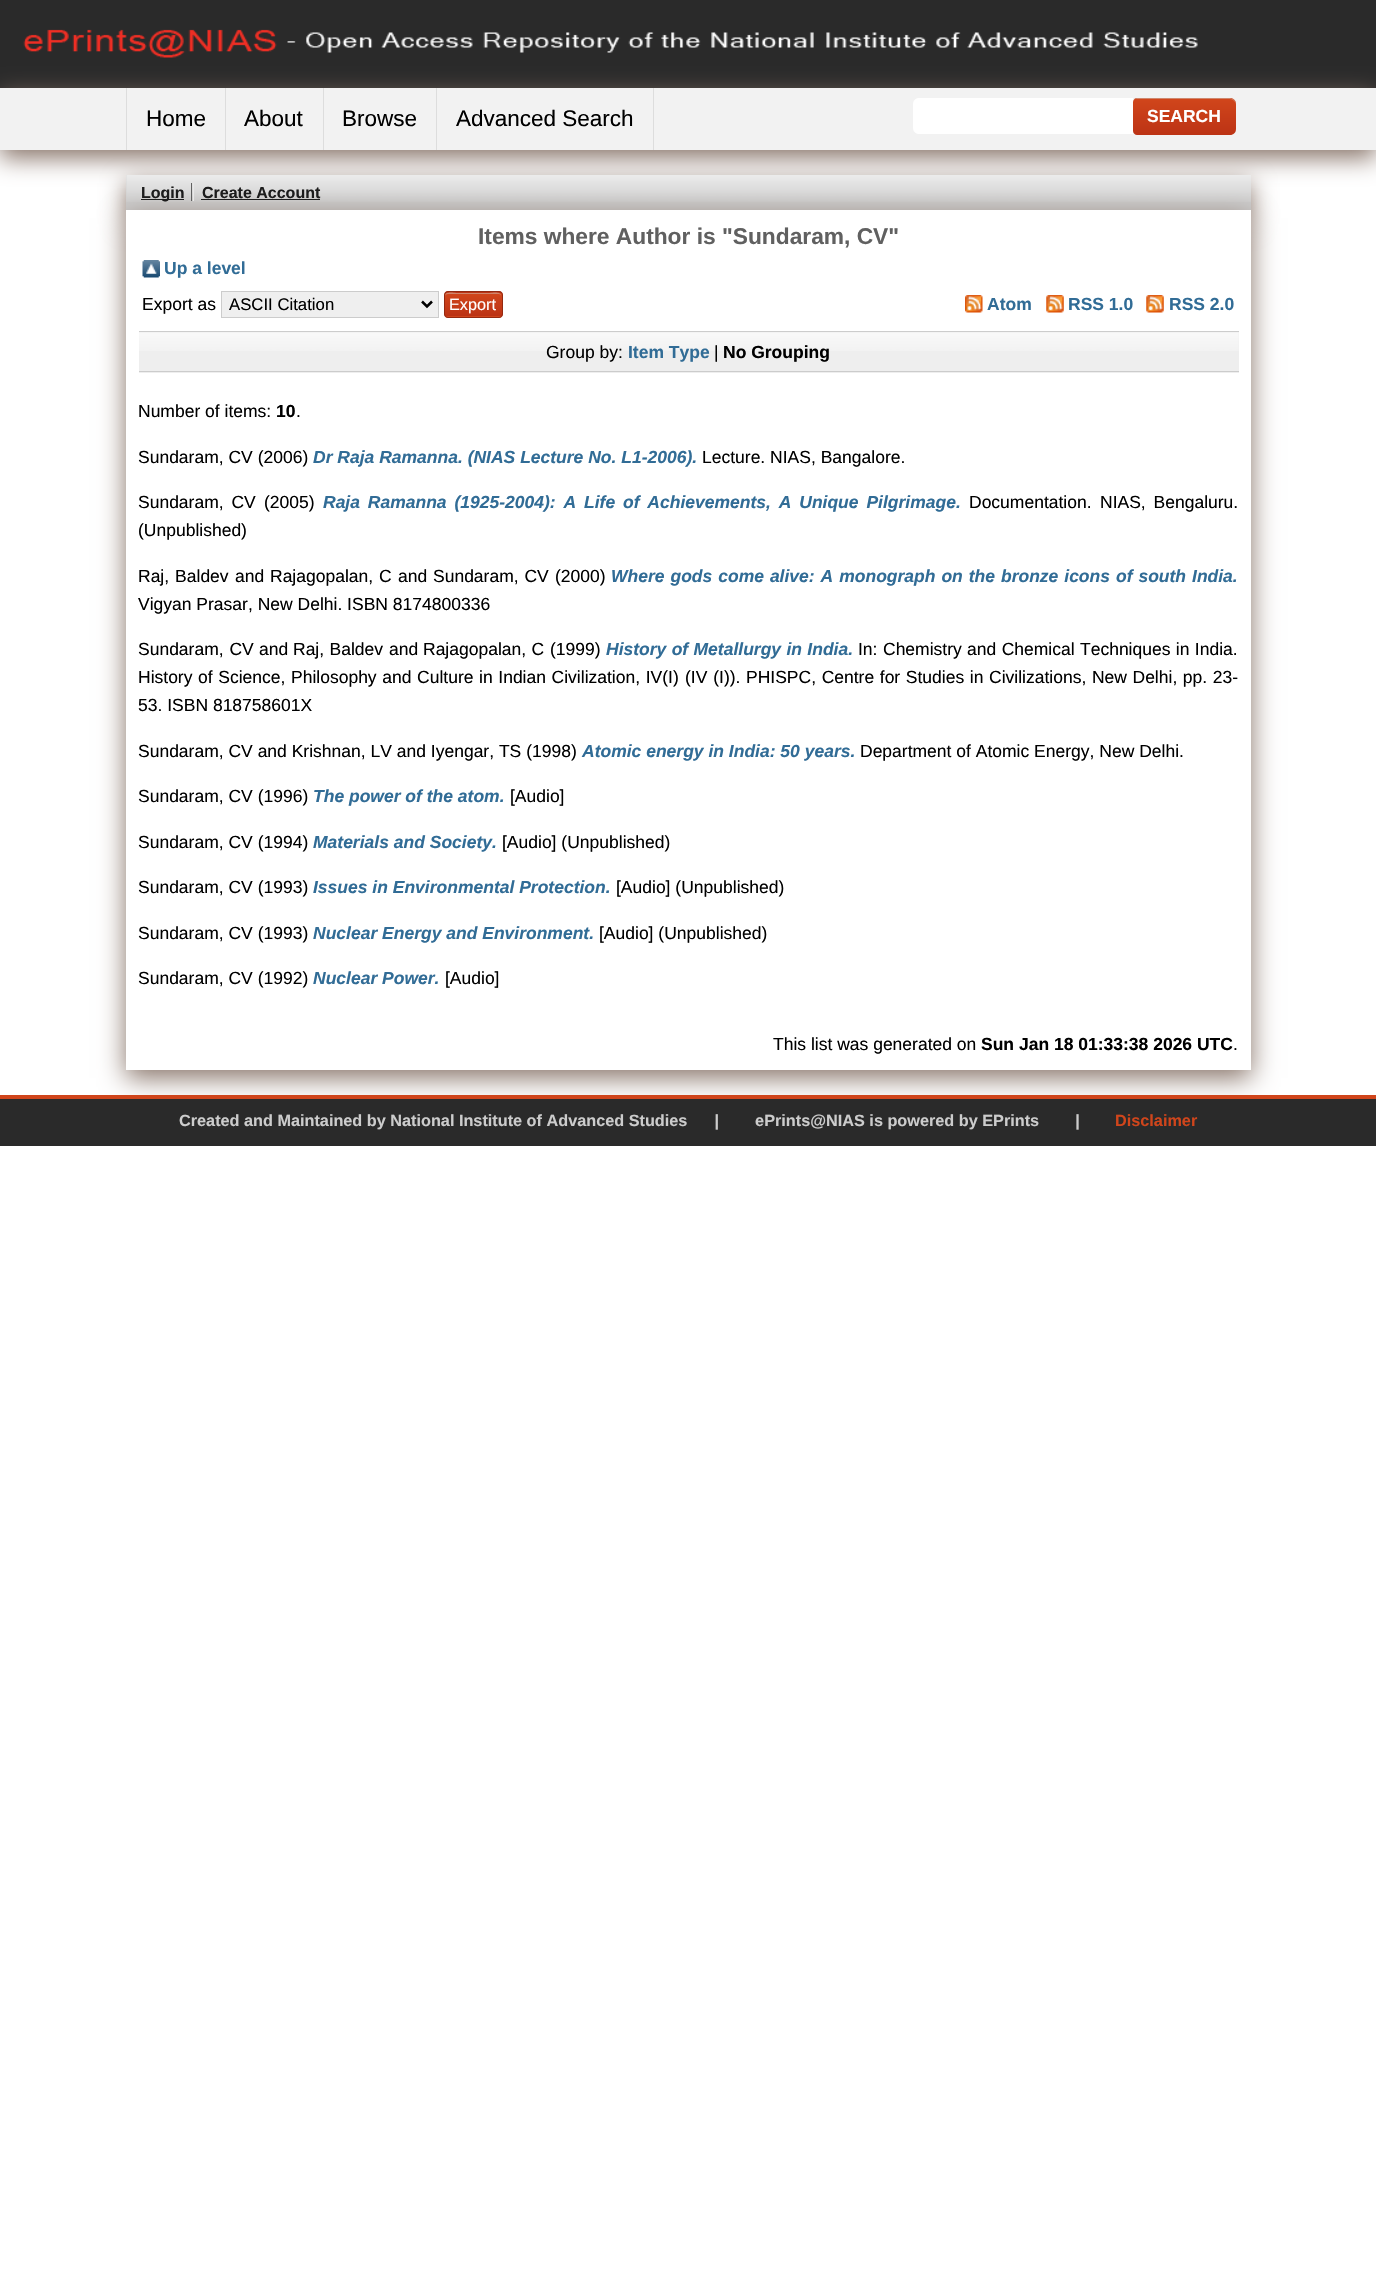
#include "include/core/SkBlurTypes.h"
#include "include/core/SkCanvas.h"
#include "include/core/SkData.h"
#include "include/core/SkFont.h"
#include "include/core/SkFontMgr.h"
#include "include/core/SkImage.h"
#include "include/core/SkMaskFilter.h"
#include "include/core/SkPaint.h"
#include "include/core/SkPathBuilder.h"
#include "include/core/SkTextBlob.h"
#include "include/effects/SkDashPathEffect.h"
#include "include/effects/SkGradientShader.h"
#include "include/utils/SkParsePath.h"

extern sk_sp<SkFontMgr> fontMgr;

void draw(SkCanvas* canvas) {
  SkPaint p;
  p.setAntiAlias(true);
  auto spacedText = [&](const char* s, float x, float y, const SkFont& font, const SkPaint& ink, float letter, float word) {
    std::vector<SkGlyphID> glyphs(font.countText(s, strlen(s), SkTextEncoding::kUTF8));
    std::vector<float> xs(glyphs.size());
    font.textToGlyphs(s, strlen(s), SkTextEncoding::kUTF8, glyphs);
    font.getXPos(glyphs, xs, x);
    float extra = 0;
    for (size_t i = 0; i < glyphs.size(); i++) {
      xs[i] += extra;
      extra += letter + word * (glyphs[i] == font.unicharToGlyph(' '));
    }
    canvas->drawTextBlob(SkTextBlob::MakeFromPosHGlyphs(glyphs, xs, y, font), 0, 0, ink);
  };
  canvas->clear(SK_ColorWHITE);
  p.setColor(SkColorSetRGB(42, 42, 42));
  canvas->drawRect(SkRect::MakeLTRB(0, 0, 1376, 88), p);
  p.setColor(SkColorSetRGB(135, 115, 104));
  p.setMaskFilter(SkMaskFilter::MakeBlur(kNormal_SkBlurStyle, 12.5f));
  canvas->drawRect(SkRect::MakeLTRB(0, 95, 1376, 158), p);
  p.setMaskFilter(nullptr);
  canvas->drawImageRect(SkImages::DeferredFromEncodedData(SkData::MakeFromFileName("images/1.png")), SkRect::MakeLTRB(23, 29, 1198, 58), SkSamplingOptions());
  p.setColor(SkColorSetRGB(242, 242, 242));
  canvas->drawRect(SkRect::MakeLTRB(0, 88, 1376, 150), p);
  p.setColor(SkColorSetRGB(135, 115, 104));
  p.setMaskFilter(SkMaskFilter::MakeBlur(kNormal_SkBlurStyle, 12.5f));
  canvas->drawRect(SkRect::MakeLTRB(126, 183, 1251, 224), p);
  p.setMaskFilter(nullptr);
  p.setColor(SkColorSetRGB(204, 204, 204));
  canvas->drawRect(SkRect::MakeLTRB(126, 175, 1251, 210), p);
  canvas->drawImageRect(SkImages::DeferredFromEncodedData(SkData::MakeFromFileName("images/2.png")), SkRect::MakeLTRB(126, 175, 1251, 202), SkSamplingOptions());
  p.setColor(SK_ColorWHITE);
  canvas->drawPath(SkPathBuilder().moveTo(919, 98).lineTo(1133, 98).lineTo(1133, 134).lineTo(919, 134).cubicTo(915.5f, 134, 913, 131.5f, 913, 128).lineTo(913, 104).cubicTo(913, 100.5f, 915.5f, 98, 919, 98).close().detach(), p);
  {
    const SkColor colors[] = {SkColorSetRGB(208, 69, 27), SkColorSetRGB(188, 51, 21)};
    const float stops[] = {0.05f, 1};
    const SkPoint ends[] = {{1184, 98}, {1184, 135}};
    p.setShader(SkGradientShader::MakeLinear(ends, colors, stops, 2, SkTileMode::kClamp));
    p.setAlpha(255);
  }
  canvas->drawPath(SkPathBuilder().moveTo(1137, 98).lineTo(1230, 98).cubicTo(1233.5f, 98, 1236, 100.5f, 1236, 104).lineTo(1236, 129).cubicTo(1236, 132.5f, 1233.5f, 135, 1230, 135).lineTo(1137, 135).cubicTo(1135, 135, 1133, 133, 1133, 131).lineTo(1133, 102).cubicTo(1133, 100, 1135, 98, 1137, 98).close().detach(), p);
  p.setShader(nullptr);
  p.setColor(SkColorSetRGB(207, 134, 108));
  canvas->drawPath(SkPathBuilder().moveTo(1136, 99).lineTo(1230, 99).cubicTo(1233, 99, 1236, 102, 1236, 105).cubicTo(1236, 103, 1235, 100, 1233, 99).lineTo(1230, 98).lineTo(1137, 98).lineTo(1134, 99).close().detach(), p);
  p.setColor(SkColorSetRGB(135, 115, 104));
  p.setMaskFilter(SkMaskFilter::MakeBlur(kNormal_SkBlurStyle, 12.5f));
  canvas->drawRect(SkRect::MakeLTRB(126, 218, 1251, 1078), p);
  p.setMaskFilter(nullptr);
  p.setColor(SkColorSetRGB(96, 96, 96));
  canvas->drawRect(SkRect::MakeLTRB(191, 183, 192, 201), p);
  p.setColor(SkColorSetRGB(28, 28, 28));
  canvas->drawRect(SkRect::MakeLTRB(141, 199, 184, 200), p);
  p.setColor(SkColorSetRGB(232, 232, 232));
  canvas->drawRect(SkRect::MakeLTRB(193, 183, 194, 201), p);
  p.setColor(SkColorSetRGB(28, 28, 28));
  canvas->drawRect(SkRect::MakeLTRB(201, 199, 320, 200), p);
  p.setColor(SkColorSetRGB(221, 221, 221));
  canvas->drawRect(SkRect::MakeLTRB(225, 88, 226, 150), p);
  canvas->drawRect(SkRect::MakeLTRB(126, 88, 127, 150), p);
  canvas->drawRect(SkRect::MakeLTRB(323, 88, 324, 150), p);
  canvas->drawRect(SkRect::MakeLTRB(436, 88, 437, 150), p);
  canvas->drawRect(SkRect::MakeLTRB(653, 88, 654, 150), p);
  p.setColor(SK_ColorWHITE);
  canvas->drawRect(SkRect::MakeLTRB(126, 210, 1251, 1070), p);
  canvas->drawImageRect(SkImages::DeferredFromEncodedData(SkData::MakeFromFileName("images/3.png")), SkRect::MakeLTRB(142, 260, 160, 278), SkSamplingOptions());
  p.setColor(SkColorSetRGB(239, 239, 239));
  canvas->drawRect(SkRect::MakeLTRB(221.5f, 291.5f, 438.5f, 317.5f), p);
  p.setStyle(SkPaint::kStroke_Style);
  p.setStrokeWidth(1);
  p.setColor(SkColorSetRGB(204, 204, 204));
  canvas->drawRect(SkRect::MakeLTRB(221.5f, 291.5f, 438.5f, 317.5f), p);
  p.setStrokeWidth(2.5f);
  p.setColor(SK_ColorBLACK);
  canvas->drawPath(SkPathBuilder().moveTo(422, 301.5f).lineTo(427, 306.5f).lineTo(432, 301.5f).detach(), p);
  canvas->save();
  canvas->clipPath(SkPathBuilder().moveTo(448, 291).lineTo(499, 291).cubicTo(501, 291, 503, 293, 503, 295).lineTo(503, 314).cubicTo(503, 316, 501, 318, 499, 318).lineTo(448, 318).cubicTo(446, 318, 444, 316, 444, 314).lineTo(444, 295).cubicTo(444, 293, 446, 291, 448, 291).close().detach(), true);
  p.setStyle(SkPaint::kFill_Style);
  {
    const SkColor colors[] = {SkColorSetRGB(208, 69, 27), SkColorSetRGB(188, 51, 21)};
    const float stops[] = {0.05f, 1};
    const SkPoint ends[] = {{473, 269}, {473, 293}};
    p.setShader(SkGradientShader::MakeLinear(ends, colors, stops, 2, SkTileMode::kClamp));
    p.setAlpha(255);
  }
  canvas->drawRect(SkRect::MakeLTRB(444, 291, 503, 293), p);
  {
    const SkColor colors[] = {SkColorSetRGB(208, 69, 27), SkColorSetRGB(188, 51, 21)};
    const float stops[] = {0.05f, 1};
    const SkPoint ends[] = {{473, 293}, {473, 316}};
    p.setShader(SkGradientShader::MakeLinear(ends, colors, stops, 2, SkTileMode::kClamp));
    p.setAlpha(255);
  }
  canvas->drawRect(SkRect::MakeLTRB(444, 293, 503, 316), p);
  {
    const SkColor colors[] = {SkColorSetRGB(208, 69, 27), SkColorSetRGB(188, 51, 21)};
    const float stops[] = {0.05f, 1};
    const SkPoint ends[] = {{473, 316}, {473, 340}};
    p.setShader(SkGradientShader::MakeLinear(ends, colors, stops, 2, SkTileMode::kClamp));
    p.setAlpha(255);
  }
  canvas->drawRect(SkRect::MakeLTRB(444, 316, 503, 318), p);
  canvas->restore();
  p.setShader(nullptr);
  p.setColor(SkColorSetRGB(207, 134, 108));
  canvas->drawPath(SkPathBuilder().moveTo(448, 294).lineTo(499, 294).cubicTo(500, 294, 501, 295, 501, 296).cubicTo(501, 291, 492, 293, 490, 293).lineTo(456, 293).cubicTo(454, 293, 445, 291, 445, 296).cubicTo(445, 295, 446, 294, 448, 294).close().detach(), p);
  p.setStyle(SkPaint::kStroke_Style);
  p.setStrokeWidth(1);
  p.setColor(SkColorSetRGB(148, 41, 17));
  canvas->drawRoundRect(SkRect::MakeLTRB(444.5f, 291.5f, 502.5f, 317.5f), 3.5f, 3.5f, p);
  canvas->drawImageRect(SkImages::DeferredFromEncodedData(SkData::MakeFromFileName("images/4.png")), SkRect::MakeLTRB(965, 295, 983, 313), SkSamplingOptions());
  canvas->drawImageRect(SkImages::DeferredFromEncodedData(SkData::MakeFromFileName("images/5.png")), SkRect::MakeLTRB(1046, 295, 1064, 313), SkSamplingOptions());
  canvas->drawImageRect(SkImages::DeferredFromEncodedData(SkData::MakeFromFileName("images/5.png")), SkRect::MakeLTRB(1146, 295, 1164, 313), SkSamplingOptions());
  p.setStyle(SkPaint::kFill_Style);
  p.setColor(SkColorSetRGB(238, 238, 238));
  canvas->drawRect(SkRect::MakeLTRB(139, 332, 1239, 373), p);
  canvas->drawImageRect(SkImages::DeferredFromEncodedData(SkData::MakeFromFileName("images/6.png")), SkRect::MakeLTRB(139, 332, 1239, 351), SkSamplingOptions());
  p.setColor(SkColorSetRGB(204, 204, 204));
  canvas->drawRect(SkRect::MakeLTRB(139, 331, 1239, 332), p);
  canvas->drawRect(SkRect::MakeLTRB(139, 371, 1239, 372), p);
  p.setColor(SkColorSetRGB(42, 42, 42));
  canvas->drawRect(SkRect::MakeLTRB(0, 1099, 1376, 1146), p);
  p.setColor(SkColorSetRGB(208, 69, 27));
  canvas->drawRect(SkRect::MakeLTRB(0, 1095, 1376, 1099), p);
  SkFont font1(fontMgr->matchFamilyStyle("Liberation Sans", SkFontStyle::Bold()), 17.5f);
  font1.setSubpixel(true);
  p.setColor(SK_ColorWHITE);
  canvas->drawString("SEARCH", 1147, 122, font1, p);
  SkFont font2(fontMgr->matchFamilyStyle("Liberation Sans", SkFontStyle::Bold()), 16);
  font2.setSubpixel(true);
  p.setColor(SkColorSetRGB(28, 28, 28));
  canvas->drawString("Login", 141, 198, font2, p);
  canvas->drawString("Create Account", 202, 198, font2, p);
  SkFont font3(fontMgr->matchFamilyStyle("Liberation Sans", SkFontStyle::Normal()), 22.5f);
  font3.setSubpixel(true);
  p.setColor(SK_ColorBLACK);
  canvas->drawString("Home", 146, 126, font3, p);
  canvas->drawString("About", 244, 126, font3, p);
  canvas->drawString("Browse", 342, 126, font3, p);
  canvas->drawString("Advanced Search", 456, 126, font3, p);
  SkFont font4(fontMgr->matchFamilyStyle("Liberation Sans", SkFontStyle::Bold()), 22.75f);
  font4.setSubpixel(true);
  p.setColor(SkColorSetRGB(96, 96, 96));
  canvas->drawString("Items where Author is \"Sundaram, CV\"", 478, 244, font4, p);
  p.setColor(SkColorSetRGB(49, 108, 150));
  canvas->drawString("Up a level", 164, 274, font1, p);
  SkFont font5(fontMgr->matchFamilyStyle("Liberation Sans", SkFontStyle::Normal()), 17.5f);
  font5.setSubpixel(true);
  p.setColor(SK_ColorBLACK);
  canvas->drawString("Export as", 142, 310, font5, p);
  SkFont font6(fontMgr->matchFamilyStyle("Liberation Sans", SkFontStyle::Normal()), 16.75f);
  font6.setSubpixel(true);
  canvas->drawString("ASCII Citation", 229, 310, font6, p);
  SkFont font7(fontMgr->matchFamilyStyle("Liberation Sans", SkFontStyle::Normal()), 16.25f);
  font7.setSubpixel(true);
  p.setColor(SK_ColorWHITE);
  canvas->drawString("Export", 449, 310, font7, p);
  p.setColor(SkColorSetRGB(49, 108, 150));
  canvas->drawString("Atom", 987, 310, font1, p);
  canvas->drawString("RSS 1.0", 1068, 310, font1, p);
  canvas->drawString("RSS 2.0", 1169, 310, font1, p);
  p.setColor(SK_ColorBLACK);
  canvas->drawString("Group by:", 546, 358, font5, p);
  p.setColor(SkColorSetRGB(49, 108, 150));
  canvas->drawString("Item Type", 628, 358, font1, p);
  p.setColor(SK_ColorBLACK);
  canvas->drawString("|", 714, 358, font5, p);
  canvas->drawString("No Grouping", 723, 358, font1, p);
  canvas->drawString("Number of items:", 138, 417, font5, p);
  canvas->drawString("10", 276, 417, font1, p);
  canvas->drawString(".", 296, 417, font5, p);
  canvas->drawString("Sundaram, CV (2006)", 138, 463, font5, p);
  SkFont font8(fontMgr->matchFamilyStyle("Liberation Sans", SkFontStyle::BoldItalic()), 17.5f);
  font8.setSubpixel(true);
  p.setColor(SkColorSetRGB(49, 108, 150));
  canvas->drawString("Dr Raja Ramanna. (NIAS Lecture No. L1-2006).", 313, 463, font8, p);
  p.setColor(SK_ColorBLACK);
  canvas->drawString("Lecture. NIAS, Bangalore.", 702, 463, font5, p);
  spacedText("Sundaram, CV", 138, 508, font5, p, 0, 3);
  canvas->drawString("(2005)", 264, 508, font5, p);
  p.setColor(SkColorSetRGB(49, 108, 150));
  spacedText("Raja Ramanna (1925-2004): A Life of Achievements, A Unique Pilgrimage.", 323, 508, font8, p, 0, 3);
  p.setColor(SK_ColorBLACK);
  canvas->drawString("Documentation.", 969, 508, font5, p);
  spacedText("NIAS, Bengaluru.", 1100, 508, font5, p, 0, 3);
  canvas->drawString("(Unpublished)", 138, 536, font5, p);
  spacedText("Raj, Baldev", 138, 582, font5, p, 0, 1.1f);
  canvas->drawString("and", 235, 582, font5, p);
  spacedText("Rajagopalan, C", 270, 582, font5, p, 0, 1);
  canvas->drawString("and", 398, 582, font5, p);
  spacedText("Sundaram, CV", 433, 582, font5, p, 0, 1);
  canvas->drawString("(2000)", 555, 582, font5, p);
  p.setColor(SkColorSetRGB(49, 108, 150));
  spacedText("Where gods come alive: A monograph on the bronze icons of south India.", 611, 582, font8, p, 0, 1.1f);
  p.setColor(SK_ColorBLACK);
  canvas->drawString("Vigyan Prasar, New Delhi. ISBN 8174800336", 138, 610, font5, p);
  spacedText("Sundaram, CV", 138, 655, font5, p, 0, 1);
  canvas->drawString("and", 259, 655, font5, p);
  spacedText("Raj, Baldev", 293, 655, font5, p, 0, 0.5f);
  canvas->drawString("and", 389, 655, font5, p);
  spacedText("Rajagopalan, C", 423, 655, font5, p, 0, 0.5f);
  canvas->drawString("(1999)", 550, 655, font5, p);
  p.setColor(SkColorSetRGB(49, 108, 150));
  spacedText("History of Metallurgy in India.", 606, 655, font8, p, 0, 0.5f);
  p.setColor(SK_ColorBLACK);
  canvas->drawString("In:", 858, 655, font5, p);
  spacedText("Chemistry and Chemical Techniques in India.", 883, 655, font5, p, 0, 0.5f);
  spacedText("History of Science, Philosophy and Culture in Indian Civilization, IV(I)", 138, 683, font5, p, 0, 0.75f);
  spacedText("(IV (I)).", 685, 683, font5, p, 0, 1);
  spacedText("PHISPC, Centre for Studies in Civilizations, New Delhi, pp. 23-", 746, 683, font5, p, 0, 0.75f);
  canvas->drawString("53. ISBN 818758601X", 138, 711, font5, p);
  canvas->drawString("Sundaram, CV and Krishnan, LV and Iyengar, TS (1998)", 138, 757, font5, p);
  p.setColor(SkColorSetRGB(49, 108, 150));
  canvas->drawString("Atomic energy in India: 50 years.", 582, 757, font8, p);
  p.setColor(SK_ColorBLACK);
  canvas->drawString("Department of Atomic Energy, New Delhi.", 860, 757, font5, p);
  canvas->drawString("Sundaram, CV (1996)", 138, 802, font5, p);
  p.setColor(SkColorSetRGB(49, 108, 150));
  canvas->drawString("The power of the atom.", 313, 802, font8, p);
  p.setColor(SK_ColorBLACK);
  canvas->drawString("[Audio]", 510, 802, font5, p);
  canvas->drawString("Sundaram, CV (1994)", 138, 848, font5, p);
  p.setColor(SkColorSetRGB(49, 108, 150));
  canvas->drawString("Materials and Society.", 313, 848, font8, p);
  p.setColor(SK_ColorBLACK);
  canvas->drawString("[Audio] (Unpublished)", 502, 848, font5, p);
  canvas->drawString("Sundaram, CV (1993)", 138, 893, font5, p);
  p.setColor(SkColorSetRGB(49, 108, 150));
  canvas->drawString("Issues in Environmental Protection.", 313, 893, font8, p);
  p.setColor(SK_ColorBLACK);
  canvas->drawString("[Audio] (Unpublished)", 616, 893, font5, p);
  canvas->drawString("Sundaram, CV (1993)", 138, 939, font5, p);
  p.setColor(SkColorSetRGB(49, 108, 150));
  canvas->drawString("Nuclear Energy and Environment.", 313, 939, font8, p);
  p.setColor(SK_ColorBLACK);
  canvas->drawString("[Audio] (Unpublished)", 599, 939, font5, p);
  canvas->drawString("Sundaram, CV (1992)", 138, 984, font5, p);
  p.setColor(SkColorSetRGB(49, 108, 150));
  canvas->drawString("Nuclear Power.", 313, 984, font8, p);
  p.setColor(SK_ColorBLACK);
  canvas->drawString("[Audio]", 445, 984, font5, p);
  canvas->drawString("This list was generated on", 773, 1050, font5, p);
  canvas->drawString("Sun Jan 18 01:33:38 2026 UTC", 981, 1050, font1, p);
  canvas->drawString(".", 1233, 1050, font5, p);
  SkFont font9(fontMgr->matchFamilyStyle("Liberation Sans", SkFontStyle::Bold()), 16.25f);
  font9.setSubpixel(true);
  p.setColor(SkColorSetRGB(204, 204, 204));
  canvas->drawString("Created and Maintained by National Institute of Advanced Studies      |        ePrints@NIAS is powered by EPrints        |", 179, 1126, font9, p);
  p.setColor(SkColorSetRGB(208, 69, 27));
  canvas->drawString("Disclaimer", 1115, 1126, font9, p);
}
